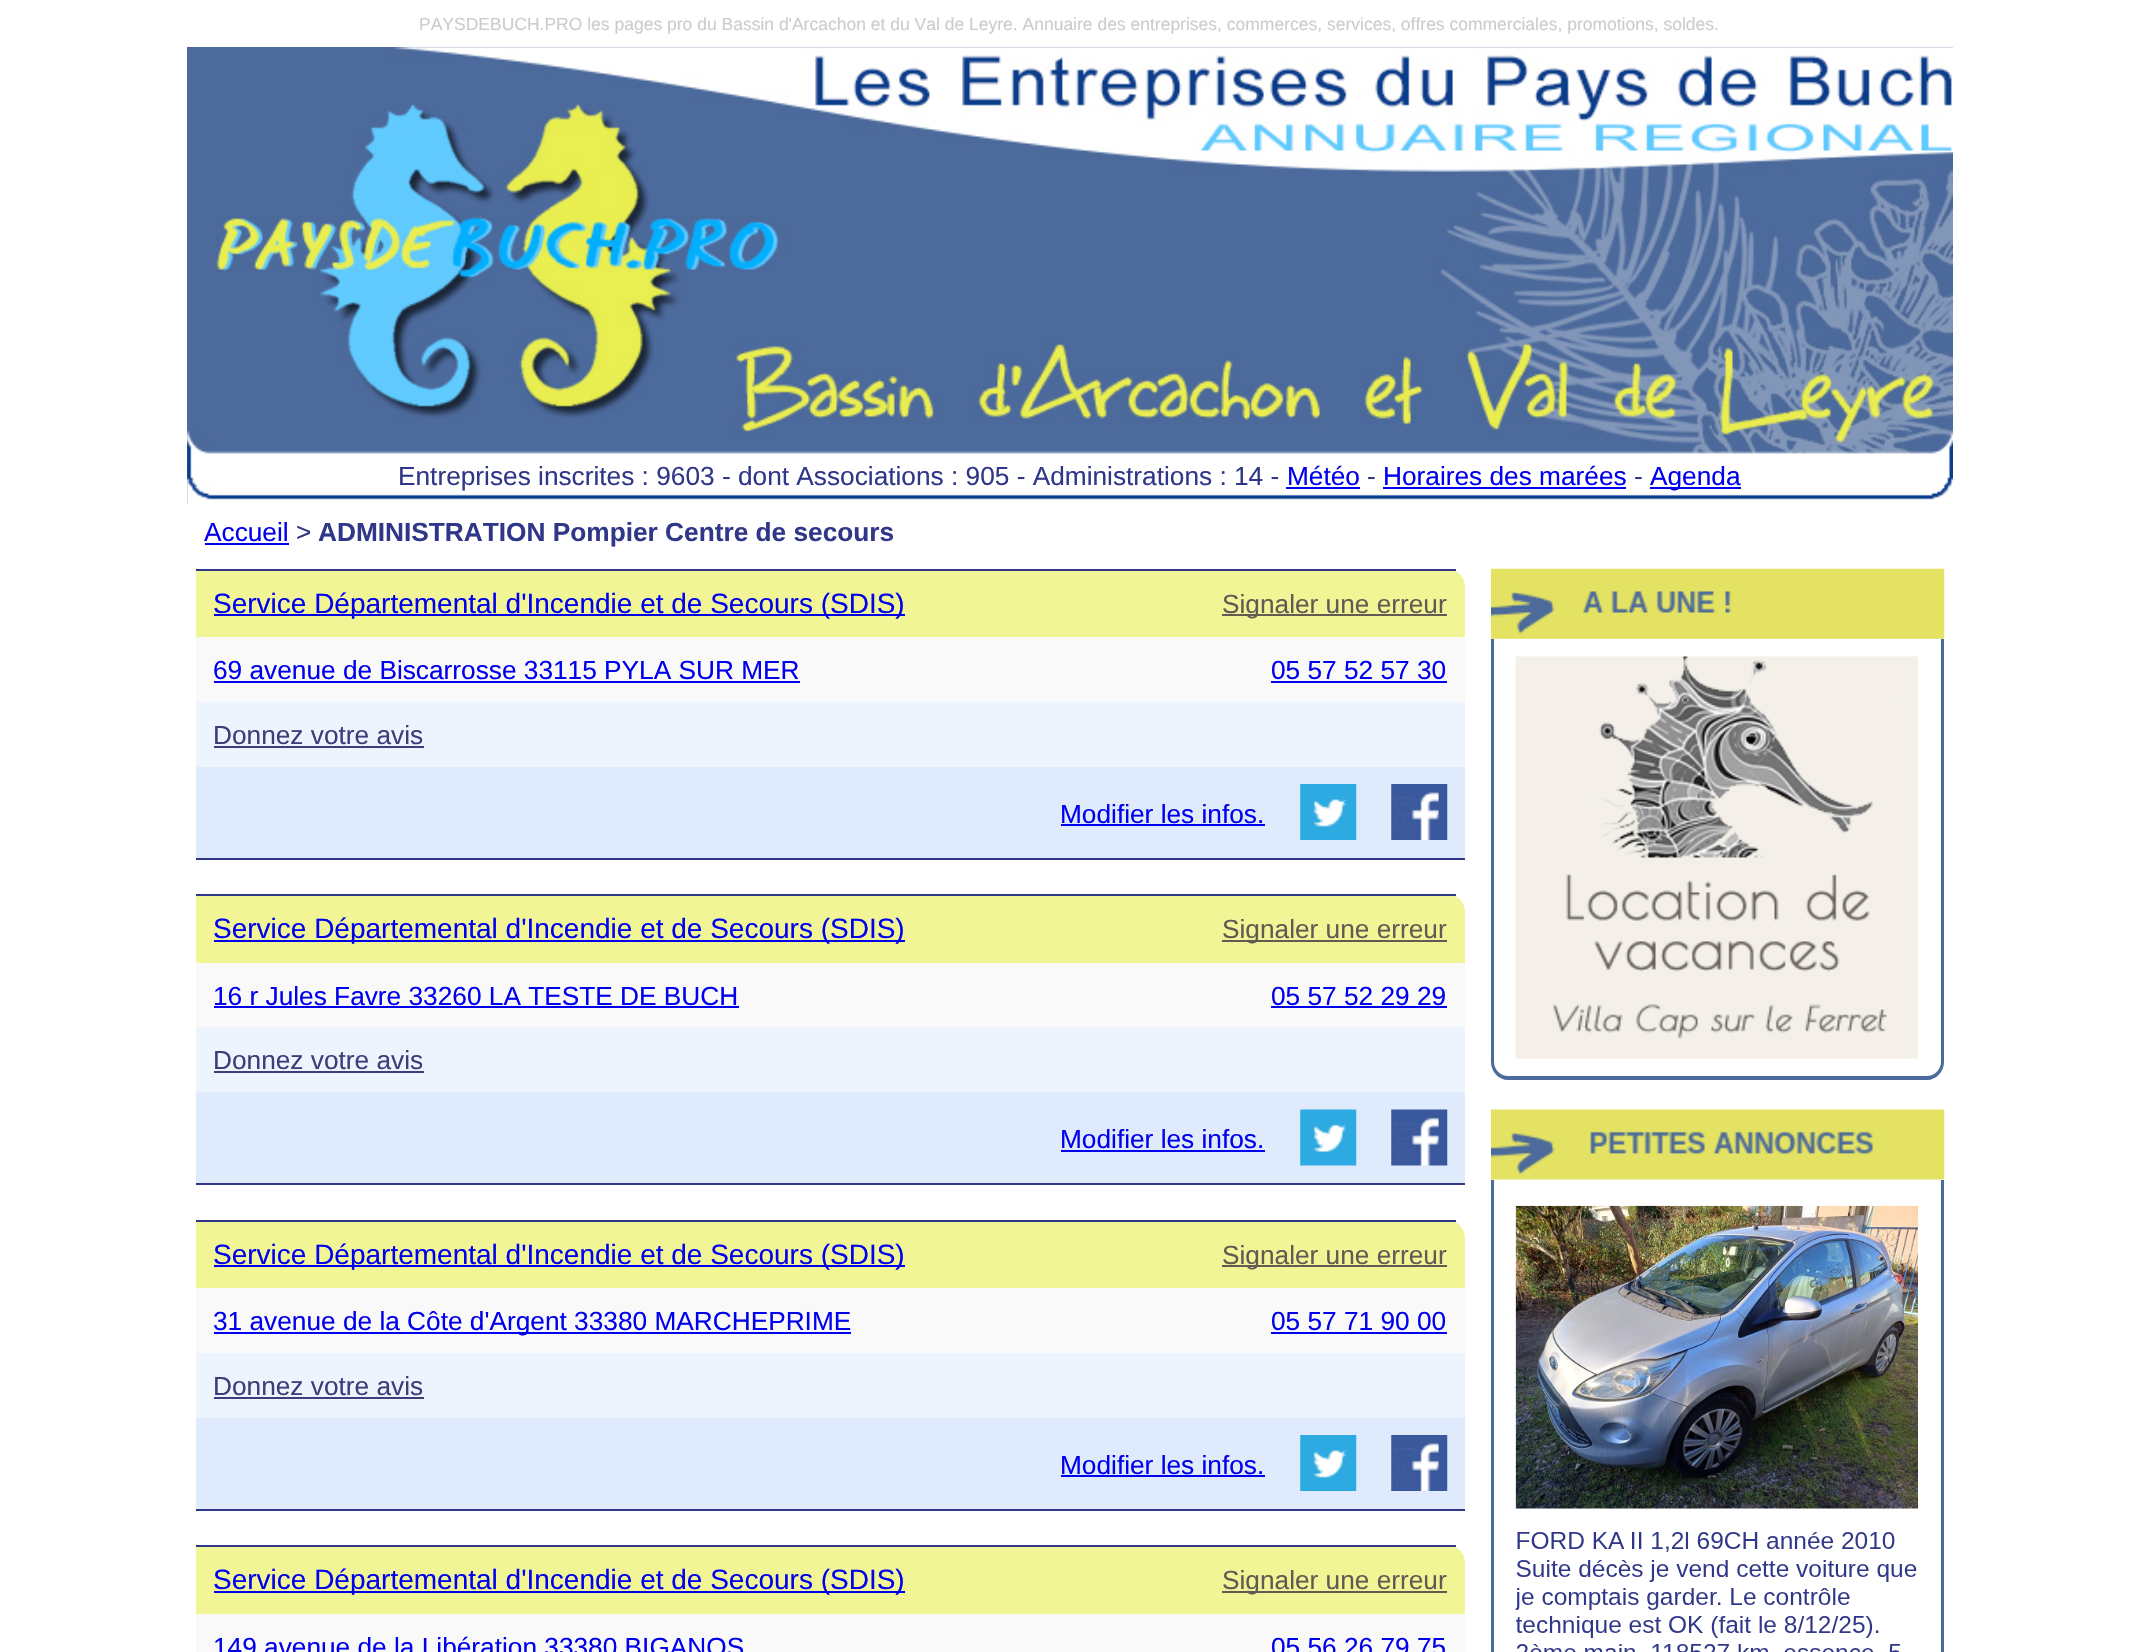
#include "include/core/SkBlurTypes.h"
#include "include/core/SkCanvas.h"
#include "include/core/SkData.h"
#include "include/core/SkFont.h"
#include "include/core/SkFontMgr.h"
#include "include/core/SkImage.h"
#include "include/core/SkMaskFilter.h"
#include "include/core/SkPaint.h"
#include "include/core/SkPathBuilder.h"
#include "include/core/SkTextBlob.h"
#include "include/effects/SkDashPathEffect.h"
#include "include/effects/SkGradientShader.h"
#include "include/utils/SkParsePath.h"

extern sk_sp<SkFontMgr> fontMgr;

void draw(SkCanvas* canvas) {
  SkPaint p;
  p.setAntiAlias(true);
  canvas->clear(SK_ColorWHITE);
  p.setColor(SkColorSetRGB(77, 107, 154));
  canvas->drawRect(SkRect::MakeLTRB(187, 47, 1953, 504), p);
  canvas->drawImageRect(SkImages::DeferredFromEncodedData(SkData::MakeFromFileName("images/1.png")), SkRect::MakeLTRB(187, 47, 1953, 504), SkSamplingOptions());
  p.setColor(SkColorSetRGB(0, 0, 238));
  canvas->drawRect(SkRect::MakeLTRB(1286, 487, 1360, 489), p);
  canvas->drawRect(SkRect::MakeLTRB(1383, 487, 1626, 489), p);
  canvas->drawRect(SkRect::MakeLTRB(1650, 487, 1741, 489), p);
  canvas->drawRect(SkRect::MakeLTRB(205, 543, 289, 545), p);
  p.setColor(SkColorSetRGB(241, 245, 150));
  canvas->drawPath(SkPathBuilder().moveTo(196, 569).lineTo(1447, 569).cubicTo(1457, 569, 1465, 577, 1465, 587).lineTo(1465, 637).lineTo(196, 637).close().detach(), p);
  p.setColor(SkColorSetRGB(48, 55, 136));
  canvas->drawRect(SkRect::MakeLTRB(196, 569, 1456, 571), p);
  p.setColor(SkColorSetRGB(0, 0, 238));
  canvas->drawRect(SkRect::MakeLTRB(214, 614, 905, 616), p);
  p.setColor(SkColorSetRGB(98, 91, 83));
  canvas->drawRect(SkRect::MakeLTRB(1222, 614, 1447, 616), p);
  p.setColor(SkColorSetRGB(249, 249, 249));
  canvas->drawRect(SkRect::MakeLTRB(196, 637, 1465, 702), p);
  p.setColor(SkColorSetRGB(0, 0, 238));
  canvas->drawRect(SkRect::MakeLTRB(214, 681, 800, 683), p);
  canvas->drawRect(SkRect::MakeLTRB(1271, 681, 1447, 683), p);
  p.setColor(SkColorSetRGB(238, 244, 254));
  canvas->drawRect(SkRect::MakeLTRB(196, 702, 1465, 767), p);
  p.setColor(SkColorSetRGB(61, 61, 121));
  canvas->drawRect(SkRect::MakeLTRB(214, 746, 424, 748), p);
  p.setColor(SkColorSetRGB(223, 234, 252));
  canvas->drawRect(SkRect::MakeLTRB(196, 767, 1465, 858), p);
  p.setColor(SkColorSetRGB(48, 55, 136));
  canvas->drawRect(SkRect::MakeLTRB(196, 858, 1465, 860), p);
  p.setColor(SkColorSetRGB(0, 0, 238));
  canvas->drawRect(SkRect::MakeLTRB(1061, 824, 1265, 826), p);
  canvas->drawImageRect(SkImages::DeferredFromEncodedData(SkData::MakeFromFileName("images/2.png")), SkRect::MakeLTRB(1300, 784, 1357, 840), SkSamplingOptions());
  canvas->drawImageRect(SkImages::DeferredFromEncodedData(SkData::MakeFromFileName("images/3.png")), SkRect::MakeLTRB(1391, 784, 1448, 840), SkSamplingOptions());
  p.setColor(SkColorSetRGB(241, 245, 150));
  canvas->drawPath(SkPathBuilder().moveTo(196, 894).lineTo(1447, 894).cubicTo(1457, 894, 1465, 902, 1465, 912).lineTo(1465, 963).lineTo(196, 963).close().detach(), p);
  p.setColor(SkColorSetRGB(48, 55, 136));
  canvas->drawRect(SkRect::MakeLTRB(196, 894, 1456, 896), p);
  p.setColor(SkColorSetRGB(0, 0, 238));
  canvas->drawRect(SkRect::MakeLTRB(214, 940, 905, 942), p);
  p.setColor(SkColorSetRGB(98, 91, 83));
  canvas->drawRect(SkRect::MakeLTRB(1222, 940, 1447, 942), p);
  p.setColor(SkColorSetRGB(249, 249, 249));
  canvas->drawRect(SkRect::MakeLTRB(196, 963, 1465, 1027), p);
  p.setColor(SkColorSetRGB(0, 0, 238));
  canvas->drawRect(SkRect::MakeLTRB(214, 1006, 739, 1008), p);
  canvas->drawRect(SkRect::MakeLTRB(1271, 1006, 1447, 1008), p);
  p.setColor(SkColorSetRGB(238, 244, 254));
  canvas->drawRect(SkRect::MakeLTRB(196, 1027, 1465, 1092), p);
  p.setColor(SkColorSetRGB(61, 61, 121));
  canvas->drawRect(SkRect::MakeLTRB(214, 1071, 424, 1073), p);
  p.setColor(SkColorSetRGB(223, 234, 252));
  canvas->drawRect(SkRect::MakeLTRB(196, 1092, 1465, 1183), p);
  p.setColor(SkColorSetRGB(48, 55, 136));
  canvas->drawRect(SkRect::MakeLTRB(196, 1183, 1465, 1185), p);
  p.setColor(SkColorSetRGB(0, 0, 238));
  canvas->drawRect(SkRect::MakeLTRB(1061, 1150, 1265, 1152), p);
  canvas->drawImageRect(SkImages::DeferredFromEncodedData(SkData::MakeFromFileName("images/4.png")), SkRect::MakeLTRB(1300, 1109, 1357, 1166), SkSamplingOptions());
  canvas->drawImageRect(SkImages::DeferredFromEncodedData(SkData::MakeFromFileName("images/5.png")), SkRect::MakeLTRB(1391, 1109, 1448, 1166), SkSamplingOptions());
  p.setColor(SkColorSetRGB(241, 245, 150));
  canvas->drawPath(SkPathBuilder().moveTo(196, 1220).lineTo(1447, 1220).cubicTo(1457, 1220, 1465, 1228, 1465, 1238).lineTo(1465, 1288).lineTo(196, 1288).close().detach(), p);
  p.setColor(SkColorSetRGB(48, 55, 136));
  canvas->drawRect(SkRect::MakeLTRB(196, 1220, 1456, 1222), p);
  p.setColor(SkColorSetRGB(0, 0, 238));
  canvas->drawRect(SkRect::MakeLTRB(214, 1265, 905, 1267), p);
  p.setColor(SkColorSetRGB(98, 91, 83));
  canvas->drawRect(SkRect::MakeLTRB(1222, 1265, 1447, 1267), p);
  p.setColor(SkColorSetRGB(249, 249, 249));
  canvas->drawRect(SkRect::MakeLTRB(196, 1288, 1465, 1353), p);
  p.setColor(SkColorSetRGB(0, 0, 238));
  canvas->drawRect(SkRect::MakeLTRB(214, 1332, 851, 1334), p);
  canvas->drawRect(SkRect::MakeLTRB(1271, 1332, 1447, 1334), p);
  p.setColor(SkColorSetRGB(238, 244, 254));
  canvas->drawRect(SkRect::MakeLTRB(196, 1353, 1465, 1418), p);
  p.setColor(SkColorSetRGB(61, 61, 121));
  canvas->drawRect(SkRect::MakeLTRB(214, 1397, 424, 1399), p);
  p.setColor(SkColorSetRGB(223, 234, 252));
  canvas->drawRect(SkRect::MakeLTRB(196, 1418, 1465, 1509), p);
  p.setColor(SkColorSetRGB(48, 55, 136));
  canvas->drawRect(SkRect::MakeLTRB(196, 1509, 1465, 1511), p);
  p.setColor(SkColorSetRGB(0, 0, 238));
  canvas->drawRect(SkRect::MakeLTRB(1061, 1475, 1265, 1477), p);
  canvas->drawImageRect(SkImages::DeferredFromEncodedData(SkData::MakeFromFileName("images/2.png")), SkRect::MakeLTRB(1300, 1435, 1357, 1491), SkSamplingOptions());
  canvas->drawImageRect(SkImages::DeferredFromEncodedData(SkData::MakeFromFileName("images/3.png")), SkRect::MakeLTRB(1391, 1435, 1448, 1491), SkSamplingOptions());
  p.setColor(SkColorSetRGB(241, 245, 150));
  canvas->drawPath(SkPathBuilder().moveTo(196, 1545).lineTo(1447, 1545).cubicTo(1457, 1545, 1465, 1553, 1465, 1563).lineTo(1465, 1614).lineTo(196, 1614).close().detach(), p);
  p.setColor(SkColorSetRGB(48, 55, 136));
  canvas->drawRect(SkRect::MakeLTRB(196, 1545, 1456, 1547), p);
  p.setColor(SkColorSetRGB(0, 0, 238));
  canvas->drawRect(SkRect::MakeLTRB(214, 1591, 905, 1593), p);
  p.setColor(SkColorSetRGB(98, 91, 83));
  canvas->drawRect(SkRect::MakeLTRB(1222, 1591, 1447, 1593), p);
  p.setColor(SkColorSetRGB(249, 249, 249));
  canvas->drawRect(SkRect::MakeLTRB(196, 1614, 1465, 1652), p);
  canvas->drawImageRect(SkImages::DeferredFromEncodedData(SkData::MakeFromFileName("images/6.png")), SkRect::MakeLTRB(1491, 568, 1945, 639), SkSamplingOptions());
  p.setColor(SkColorSetRGB(76, 106, 156));
  canvas->drawPath(SkPathBuilder(SkPathFillType::kEvenOdd).moveTo(1491, 639).lineTo(1944, 639).lineTo(1944, 1062).cubicTo(1944, 1072, 1936, 1080, 1927, 1080).lineTo(1508, 1080).cubicTo(1499, 1080, 1491, 1072, 1491, 1062).close().moveTo(1494, 639).lineTo(1941, 639).lineTo(1941, 1062).cubicTo(1941, 1070, 1934, 1076, 1927, 1076).lineTo(1508, 1076).cubicTo(1501, 1076, 1494, 1070, 1494, 1062).close().detach(), p);
  canvas->drawImageRect(SkImages::DeferredFromEncodedData(SkData::MakeFromFileName("images/7.png")), SkRect::MakeLTRB(1515, 656, 1918, 1059), SkSamplingOptions());
  canvas->drawImageRect(SkImages::DeferredFromEncodedData(SkData::MakeFromFileName("images/8.png")), SkRect::MakeLTRB(1491, 1109, 1945, 1180), SkSamplingOptions());
  canvas->drawPath(SkPathBuilder(SkPathFillType::kEvenOdd).moveTo(1491, 1180).lineTo(1944, 1180).lineTo(1944, 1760).cubicTo(1944, 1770, 1936, 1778, 1927, 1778).lineTo(1508, 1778).cubicTo(1499, 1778, 1491, 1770, 1491, 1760).close().moveTo(1494, 1180).lineTo(1941, 1180).lineTo(1941, 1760).cubicTo(1941, 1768, 1934, 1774, 1927, 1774).lineTo(1508, 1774).cubicTo(1501, 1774, 1494, 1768, 1494, 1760).close().detach(), p);
  canvas->drawImageRect(SkImages::DeferredFromEncodedData(SkData::MakeFromFileName("images/9.png")), SkRect::MakeLTRB(1515, 1205, 1918, 1652), SkSamplingOptions());
  SkFont font1(fontMgr->matchFamilyStyle("Liberation Sans", SkFontStyle::Normal()), 17.5f);
  font1.setSubpixel(true);
  p.setColor(SkColorSetRGB(204, 204, 204));
  canvas->drawString("PAYSDEBUCH.PRO les pages pro du Bassin d'Arcachon et du Val de Leyre. Annuaire des entreprises, commerces, services, offres commerciales, promotions, soldes.", 419, 30, font1, p);
  SkFont font2(fontMgr->matchFamilyStyle("Liberation Sans", SkFontStyle::Normal()), 26.25f);
  font2.setSubpixel(true);
  p.setColor(SkColorSetRGB(48, 55, 136));
  canvas->drawString("Entreprises inscrites : 9603 - dont Associations : 905 - Administrations : 14 -", 398, 485, font2, p);
  p.setColor(SkColorSetRGB(0, 0, 238));
  canvas->drawString("Météo", 1287, 485, font2, p);
  p.setColor(SkColorSetRGB(48, 55, 136));
  canvas->drawString("-", 1367, 485, font2, p);
  p.setColor(SkColorSetRGB(0, 0, 238));
  canvas->drawString("Horaires des marées", 1383, 485, font2, p);
  p.setColor(SkColorSetRGB(48, 55, 136));
  canvas->drawString("-", 1634, 485, font2, p);
  p.setColor(SkColorSetRGB(0, 0, 238));
  canvas->drawString("Agenda", 1650, 485, font2, p);
  canvas->drawString("Accueil", 204, 541, font2, p);
  p.setColor(SkColorSetRGB(48, 55, 136));
  canvas->drawString(">", 296, 541, font2, p);
  SkFont font3(fontMgr->matchFamilyStyle("Liberation Sans", SkFontStyle::Bold()), 26.25f);
  font3.setSubpixel(true);
  canvas->drawString("ADMINISTRATION Pompier Centre de secours", 318, 541, font3, p);
  SkFont font4(fontMgr->matchFamilyStyle("Liberation Sans", SkFontStyle::Normal()), 28);
  font4.setSubpixel(true);
  p.setColor(SkColorSetRGB(0, 0, 238));
  canvas->drawString("Service Départemental d'Incendie et de Secours (SDIS)", 213, 613, font4, p);
  p.setColor(SkColorSetRGB(98, 91, 83));
  canvas->drawString("Signaler une erreur", 1222, 613, font2, p);
  p.setColor(SkColorSetRGB(0, 0, 238));
  canvas->drawString("69 avenue de Biscarrosse 33115 PYLA SUR MER", 213, 679, font2, p);
  canvas->drawString("05 57 52 57 30", 1271, 679, font2, p);
  p.setColor(SkColorSetRGB(61, 61, 121));
  canvas->drawString("Donnez votre avis", 213, 744, font2, p);
  p.setColor(SkColorSetRGB(0, 0, 238));
  canvas->drawString("Modifier les infos.", 1060, 823, font2, p);
  canvas->drawString("Service Départemental d'Incendie et de Secours (SDIS)", 213, 938, font4, p);
  p.setColor(SkColorSetRGB(98, 91, 83));
  canvas->drawString("Signaler une erreur", 1222, 938, font2, p);
  p.setColor(SkColorSetRGB(0, 0, 238));
  canvas->drawString("16 r Jules Favre 33260 LA TESTE DE BUCH", 213, 1005, font2, p);
  canvas->drawString("05 57 52 29 29", 1271, 1005, font2, p);
  p.setColor(SkColorSetRGB(61, 61, 121));
  canvas->drawString("Donnez votre avis", 213, 1069, font2, p);
  p.setColor(SkColorSetRGB(0, 0, 238));
  canvas->drawString("Modifier les infos.", 1060, 1148, font2, p);
  canvas->drawString("Service Départemental d'Incendie et de Secours (SDIS)", 213, 1264, font4, p);
  p.setColor(SkColorSetRGB(98, 91, 83));
  canvas->drawString("Signaler une erreur", 1222, 1264, font2, p);
  p.setColor(SkColorSetRGB(0, 0, 238));
  canvas->drawString("31 avenue de la Côte d'Argent 33380 MARCHEPRIME", 213, 1330, font2, p);
  canvas->drawString("05 57 71 90 00", 1271, 1330, font2, p);
  p.setColor(SkColorSetRGB(61, 61, 121));
  canvas->drawString("Donnez votre avis", 213, 1395, font2, p);
  p.setColor(SkColorSetRGB(0, 0, 238));
  canvas->drawString("Modifier les infos.", 1060, 1474, font2, p);
  canvas->drawString("Service Départemental d'Incendie et de Secours (SDIS)", 213, 1589, font4, p);
  p.setColor(SkColorSetRGB(98, 91, 83));
  canvas->drawString("Signaler une erreur", 1222, 1589, font2, p);
  p.setColor(SkColorSetRGB(0, 0, 238));
  canvas->drawString("149 avenue de la Libération 33380 BIGANOS", 213, 1656, font2, p);
  canvas->drawString("05 56 26 79 75", 1271, 1656, font2, p);
}
